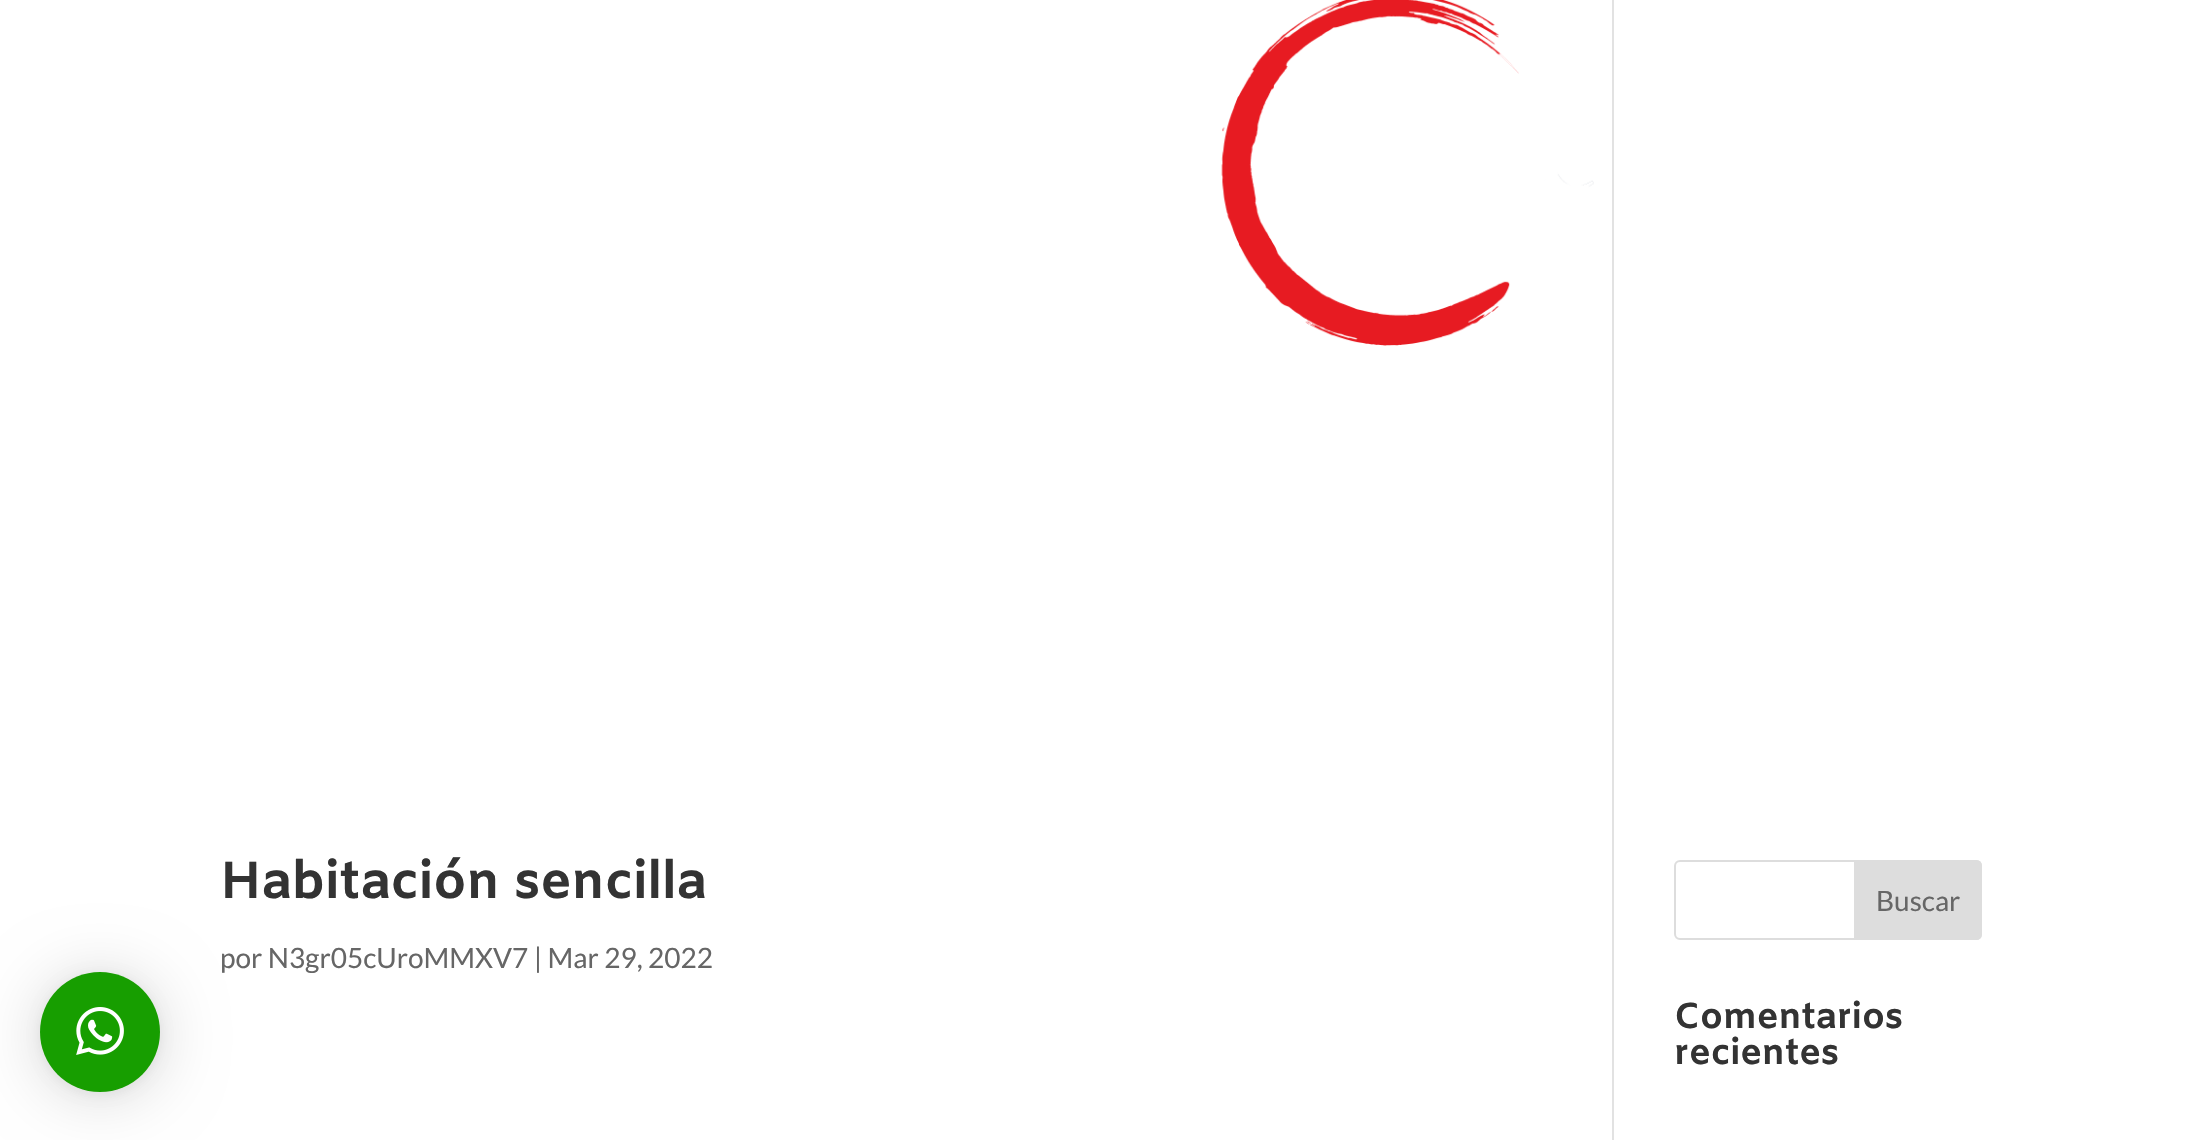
#include "include/core/SkBlurTypes.h"
#include "include/core/SkCanvas.h"
#include "include/core/SkData.h"
#include "include/core/SkFont.h"
#include "include/core/SkFontMgr.h"
#include "include/core/SkImage.h"
#include "include/core/SkMaskFilter.h"
#include "include/core/SkPaint.h"
#include "include/core/SkPathBuilder.h"
#include "include/core/SkTextBlob.h"
#include "include/effects/SkDashPathEffect.h"
#include "include/effects/SkGradientShader.h"
#include "include/utils/SkParsePath.h"

extern sk_sp<SkFontMgr> fontMgr;

void draw(SkCanvas* canvas) {
  SkPaint p;
  p.setAntiAlias(true);
  canvas->clear(SK_ColorWHITE);
  p.setColor(SkColorSetARGB(41, 0, 0, 0));
  p.setMaskFilter(SkMaskFilter::MakeBlur(kNormal_SkBlurStyle, 32));
  canvas->drawRoundRect(SkRect::MakeLTRB(40, 976, 160, 1096), 60, 60, p);
  p.setMaskFilter(nullptr);
  p.setColor(SkColorSetARGB(15, 0, 0, 0));
  p.setMaskFilter(SkMaskFilter::MakeBlur(kNormal_SkBlurStyle, 6));
  canvas->drawRoundRect(SkRect::MakeLTRB(40, 974, 160, 1094), 60, 60, p);
  p.setMaskFilter(nullptr);
  p.setColor(SkColorSetRGB(23, 158, 0));
  canvas->drawCircle(100, 1032, 60, p);
  canvas->drawImageRect(SkImages::DeferredFromEncodedData(SkData::MakeFromFileName("images/1.png")), SkRect::MakeLTRB(76, 1007, 124, 1055), SkSamplingOptions());
  canvas->drawImageRect(SkImages::DeferredFromEncodedData(SkData::MakeFromFileName("images/2.png")), SkRect::MakeLTRB(1221, 0, 1594, 346), SkSamplingOptions());
  p.setColor(SkColorSetRGB(226, 226, 226));
  canvas->drawRect(SkRect::MakeLTRB(1612, 0, 1614, 1140), p);
  p.setStyle(SkPaint::kStroke_Style);
  p.setStrokeWidth(2);
  p.setColor(SkColorSetRGB(221, 221, 221));
  canvas->drawRoundRect(SkRect::MakeLTRB(1675, 861, 1981, 939), 5, 5, p);
  p.setStyle(SkPaint::kFill_Style);
  canvas->drawPath(SkPathBuilder().moveTo(1855, 861).lineTo(1976, 861).cubicTo(1979, 861, 1981, 863, 1981, 866).lineTo(1981, 934).cubicTo(1981, 937, 1979, 939, 1976, 939).lineTo(1855, 939).close().detach(), p);
  p.setStyle(SkPaint::kStroke_Style);
  canvas->drawPath(SkPathBuilder().moveTo(1855, 861).lineTo(1976, 861).cubicTo(1979, 861, 1981, 863, 1981, 866).lineTo(1981, 934).cubicTo(1981, 937, 1979, 939, 1976, 939).lineTo(1855, 939).close().detach(), p);
  SkFont font1(fontMgr->matchFamilyStyle("Amiko", SkFontStyle::Bold()), 52);
  font1.setSubpixel(true);
  p.setStyle(SkPaint::kFill_Style);
  p.setColor(SkColorSetRGB(51, 51, 51));
  canvas->drawString("Habitación sencilla", 220, 898, font1, p);
  SkFont font2(fontMgr->matchFamilyStyle("Lato", SkFontStyle::Normal()), 28);
  font2.setSubpixel(true);
  p.setColor(SkColorSetRGB(102, 102, 102));
  canvas->drawString("por N3gr05cUroMMXV7 | Mar 29, 2022", 220, 968, font2, p);
  canvas->drawString("Buscar", 1876, 911, font2, p);
  SkFont font3(fontMgr->matchFamilyStyle("Amiko", SkFontStyle::Bold()), 36);
  font3.setSubpixel(true);
  p.setColor(SkColorSetRGB(51, 51, 51));
  canvas->drawString("Comentarios", 1674, 1028, font3, p);
  canvas->drawString("recientes", 1674, 1064, font3, p);
}
